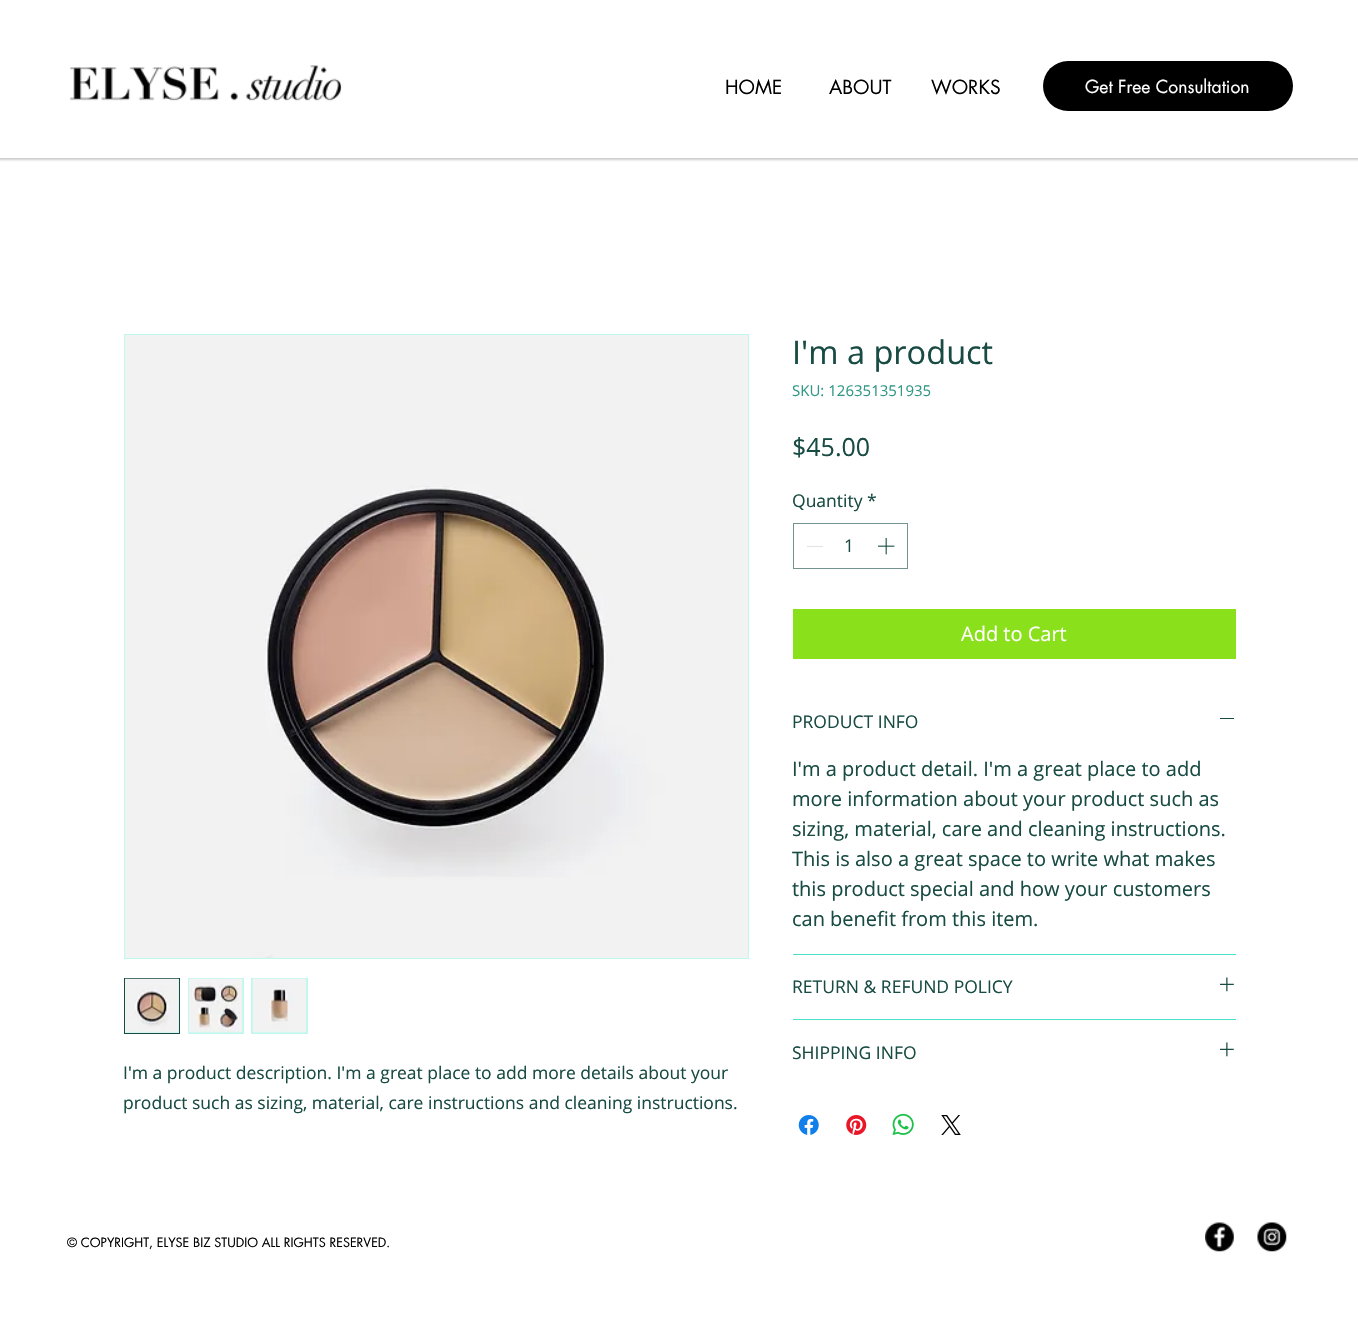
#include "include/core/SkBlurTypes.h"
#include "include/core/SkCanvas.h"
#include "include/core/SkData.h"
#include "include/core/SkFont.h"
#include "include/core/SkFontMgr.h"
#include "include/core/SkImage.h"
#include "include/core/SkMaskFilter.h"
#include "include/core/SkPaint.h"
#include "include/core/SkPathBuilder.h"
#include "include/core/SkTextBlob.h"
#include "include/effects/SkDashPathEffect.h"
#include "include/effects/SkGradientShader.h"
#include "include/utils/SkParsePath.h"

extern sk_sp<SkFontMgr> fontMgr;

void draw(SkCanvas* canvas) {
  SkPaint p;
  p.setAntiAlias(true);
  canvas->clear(SK_ColorWHITE);
  p.setColor(SkColorSetARGB(51, 0, 0, 0));
  p.setMaskFilter(SkMaskFilter::MakeBlur(kNormal_SkBlurStyle, 1));
  canvas->drawRect(SkRect::MakeLTRB(-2, -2, 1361, 160), p);
  p.setMaskFilter(nullptr);
  p.setColor(SK_ColorWHITE);
  canvas->drawRect(SkRect::MakeLTRB(0, 0, 1358, 158), p);
  canvas->drawImageRect(SkImages::DeferredFromEncodedData(SkData::MakeFromFileName("images/1.png")), SkRect::MakeLTRB(70, 65, 342, 101), SkSamplingOptions());
  p.setColor(SK_ColorBLACK);
  canvas->drawRoundRect(SkRect::MakeLTRB(1043, 61, 1293, 111), 25, 25, p);
  p.setStyle(SkPaint::kStroke_Style);
  p.setStrokeWidth(1);
  p.setColor(SkColorSetRGB(116, 147, 142));
  canvas->drawRect(SkRect::MakeLTRB(793.5f, 523.5f, 907.5f, 568.5f), p);
  p.setStyle(SkPaint::kFill_Style);
  p.setColor(SkColorSetRGB(227, 227, 227));
  canvas->drawRect(SkRect::MakeLTRB(807, 546, 823, 547), p);
  canvas->drawImageRect(SkImages::DeferredFromEncodedData(SkData::MakeFromFileName("images/2.png")), SkRect::MakeLTRB(878, 538, 895, 555), SkSamplingOptions());
  p.setColor(SkColorSetRGB(138, 224, 26));
  canvas->drawRect(SkRect::MakeLTRB(793, 609, 1236, 659), p);
  p.setColor(SkColorSetRGB(72, 226, 201));
  canvas->drawRect(SkRect::MakeLTRB(793, 954, 1236, 955), p);
  p.setColor(SkColorSetRGB(24, 75, 67));
  canvas->drawRect(SkRect::MakeLTRB(1220, 718, 1234, 719), p);
  p.setColor(SkColorSetRGB(72, 226, 201));
  canvas->drawRect(SkRect::MakeLTRB(793, 1019, 1236, 1020), p);
  canvas->drawImageRect(SkImages::DeferredFromEncodedData(SkData::MakeFromFileName("images/3.png")), SkRect::MakeLTRB(1220, 977, 1234, 992), SkSamplingOptions());
  canvas->drawImageRect(SkImages::DeferredFromEncodedData(SkData::MakeFromFileName("images/3.png")), SkRect::MakeLTRB(1220, 1042, 1234, 1057), SkSamplingOptions());
  canvas->drawImageRect(SkImages::DeferredFromEncodedData(SkData::MakeFromFileName("images/4.png")), SkRect::MakeLTRB(798, 1115, 819, 1135), SkSamplingOptions());
  canvas->drawImageRect(SkImages::DeferredFromEncodedData(SkData::MakeFromFileName("images/5.png")), SkRect::MakeLTRB(846, 1115, 867, 1135), SkSamplingOptions());
  canvas->drawImageRect(SkImages::DeferredFromEncodedData(SkData::MakeFromFileName("images/6.png")), SkRect::MakeLTRB(892, 1113, 914, 1136), SkSamplingOptions());
  canvas->drawImageRect(SkImages::DeferredFromEncodedData(SkData::MakeFromFileName("images/7.png")), SkRect::MakeLTRB(941, 1115, 961, 1135), SkSamplingOptions());
  p.setStyle(SkPaint::kStroke_Style);
  p.setColor(SkColorSetRGB(191, 248, 238));
  canvas->drawRect(SkRect::MakeLTRB(124.5f, 334.5f, 748.5f, 958.5f), p);
  canvas->drawImageRect(SkImages::DeferredFromEncodedData(SkData::MakeFromFileName("images/8.png")), SkRect::MakeLTRB(125, 335, 748, 958), SkSamplingOptions());
  p.setStyle(SkPaint::kFill_Style);
  canvas->drawRect(SkRect::MakeLTRB(124.5f, 978.5f, 179.5f, 1033.5f), p);
  p.setStyle(SkPaint::kStroke_Style);
  p.setColor(SkColorSetRGB(24, 75, 67));
  canvas->drawRect(SkRect::MakeLTRB(124.5f, 978.5f, 179.5f, 1033.5f), p);
  canvas->drawImageRect(SkImages::DeferredFromEncodedData(SkData::MakeFromFileName("images/9.png")), SkRect::MakeLTRB(125, 978, 179, 1033), SkSamplingOptions());
  p.setStyle(SkPaint::kFill_Style);
  p.setColor(SkColorSetRGB(191, 248, 238));
  canvas->drawRect(SkRect::MakeLTRB(188, 978, 244, 1034), p);
  canvas->drawImageRect(SkImages::DeferredFromEncodedData(SkData::MakeFromFileName("images/10.png")), SkRect::MakeLTRB(188, 978, 243, 1033), SkSamplingOptions());
  canvas->drawRect(SkRect::MakeLTRB(251, 978, 308, 1034), p);
  canvas->drawImageRect(SkImages::DeferredFromEncodedData(SkData::MakeFromFileName("images/11.png")), SkRect::MakeLTRB(252, 978, 307, 1033), SkSamplingOptions());
  canvas->drawImageRect(SkImages::DeferredFromEncodedData(SkData::MakeFromFileName("images/12.png")), SkRect::MakeLTRB(1205, 1222, 1234, 1252), SkSamplingOptions());
  canvas->drawImageRect(SkImages::DeferredFromEncodedData(SkData::MakeFromFileName("images/13.png")), SkRect::MakeLTRB(1257, 1222, 1287, 1252), SkSamplingOptions());
  SkFont font1(fontMgr->matchFamilyStyle("futura", SkFontStyle::Normal()), 19);
  font1.setSubpixel(true);
  p.setColor(SK_ColorBLACK);
  canvas->drawString("HOME", 725, 94, font1, p);
  canvas->drawString("ABOUT", 829, 94, font1, p);
  canvas->drawString("WORKS", 931, 94, font1, p);
  SkFont font2(fontMgr->matchFamilyStyle("futura", SkFontStyle::Normal()), 17.5f);
  font2.setSubpixel(true);
  p.setColor(SK_ColorWHITE);
  canvas->drawString("Get Free Consultation", 1085, 93, font2, p);
  SkFont font3(fontMgr->matchFamilyStyle("Open Sans", SkFontStyle::Normal()), 32.5f);
  font3.setSubpixel(true);
  p.setColor(SkColorSetRGB(24, 75, 67));
  canvas->drawString("I'm a product", 792, 364, font3, p);
  SkFont font4(fontMgr->matchFamilyStyle("Open Sans", SkFontStyle::Normal()), 15);
  font4.setSubpixel(true);
  p.setColor(SkColorSetRGB(48, 151, 134));
  canvas->drawString("SKU: 126351351935", 792, 396, font4, p);
  SkFont font5(fontMgr->matchFamilyStyle("Open Sans", SkFontStyle::Normal()), 25);
  font5.setSubpixel(true);
  p.setColor(SkColorSetRGB(24, 75, 67));
  canvas->drawString("$45.00", 792, 456, font5, p);
  SkFont font6(fontMgr->matchFamilyStyle("Open Sans", SkFontStyle::Normal()), 17.5f);
  font6.setSubpixel(true);
  canvas->drawString("Quantity", 792, 507, font6, p);
  canvas->drawString("*", 867, 507, font6, p);
  canvas->drawString("1", 844, 552, font6, p);
  SkFont font7(fontMgr->matchFamilyStyle("Open Sans", SkFontStyle::Normal()), 20);
  font7.setSubpixel(true);
  p.setColor(SK_ColorWHITE);
  canvas->drawString("Add to Cart", 961, 641, font7, p);
  p.setColor(SkColorSetRGB(24, 75, 67));
  canvas->drawString("PRODUCT INFO", 792, 728, font6, p);
  canvas->drawString("I'm a product detail. I'm a great place to add", 792, 776, font7, p);
  canvas->drawString("more information about your product such as", 792, 806, font7, p);
  canvas->drawString("sizing, material, care and cleaning instructions.", 792, 836, font7, p);
  canvas->drawString("This is also a great space to write what makes", 792, 866, font7, p);
  canvas->drawString("this product special and how your customers", 792, 896, font7, p);
  canvas->drawString("can benefit from this item.", 792, 926, font7, p);
  canvas->drawString("RETURN & REFUND POLICY", 792, 993, font6, p);
  canvas->drawString("SHIPPING INFO", 792, 1059, font6, p);
  canvas->drawString("I'm a product description. I'm a great place to add more details about your", 123, 1079, font6, p);
  canvas->drawString("product such as sizing, material, care instructions and cleaning instructions.", 123, 1109, font6, p);
  SkFont font8(fontMgr->matchFamilyStyle("futura", SkFontStyle::Normal()), 12.5f);
  font8.setSubpixel(true);
  p.setColor(SK_ColorBLACK);
  canvas->drawString("© COPYRIGHT, ELYSE BIZ STUDIO ALL RIGHTS RESERVED.", 67, 1247, font8, p);
}
